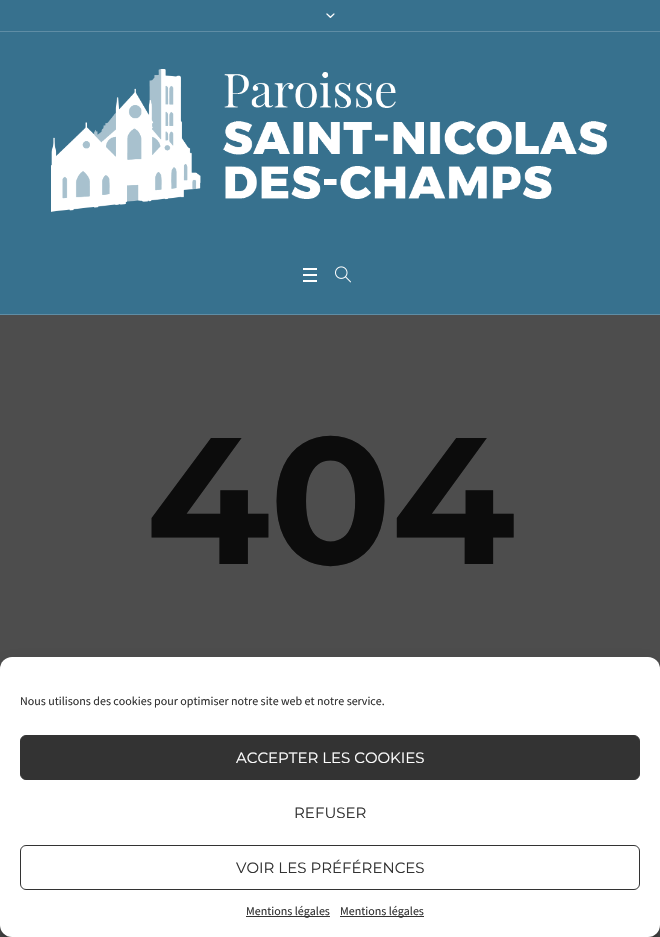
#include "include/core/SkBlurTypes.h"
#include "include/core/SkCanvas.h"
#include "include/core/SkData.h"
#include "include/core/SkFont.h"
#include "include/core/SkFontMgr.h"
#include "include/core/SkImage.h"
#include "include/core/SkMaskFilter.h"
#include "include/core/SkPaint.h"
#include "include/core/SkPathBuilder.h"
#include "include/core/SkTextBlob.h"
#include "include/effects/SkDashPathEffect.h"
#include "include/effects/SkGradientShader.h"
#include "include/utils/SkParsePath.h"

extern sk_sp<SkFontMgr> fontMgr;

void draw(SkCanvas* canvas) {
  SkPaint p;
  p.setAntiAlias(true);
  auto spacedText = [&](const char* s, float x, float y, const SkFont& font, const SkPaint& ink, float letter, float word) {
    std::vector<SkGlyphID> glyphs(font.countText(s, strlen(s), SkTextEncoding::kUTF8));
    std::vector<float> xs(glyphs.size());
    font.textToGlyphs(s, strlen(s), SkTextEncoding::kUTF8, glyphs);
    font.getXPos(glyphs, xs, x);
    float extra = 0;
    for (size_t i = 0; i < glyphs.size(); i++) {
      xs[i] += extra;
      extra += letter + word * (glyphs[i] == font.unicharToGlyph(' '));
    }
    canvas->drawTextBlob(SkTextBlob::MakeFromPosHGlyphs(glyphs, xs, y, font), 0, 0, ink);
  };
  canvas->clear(SkColorSetRGB(77, 77, 77));
  p.setColor(SkColorSetRGB(55, 113, 142));
  canvas->drawRect(SkRect::MakeLTRB(0, 0, 660, 31), p);
  p.setColor(SkColorSetRGB(95, 141, 165));
  canvas->drawRect(SkRect::MakeLTRB(0, 31, 660, 32), p);
  canvas->drawImageRect(SkImages::DeferredFromEncodedData(SkData::MakeFromFileName("images/1.png")), SkRect::MakeLTRB(326, 13, 335, 18), SkSamplingOptions());
  p.setColor(SkColorSetRGB(55, 113, 142));
  canvas->drawRect(SkRect::MakeLTRB(0, 32, 660, 314), p);
  p.setColor(SkColorSetRGB(95, 141, 165));
  canvas->drawRect(SkRect::MakeLTRB(0, 314, 660, 315), p);
  canvas->drawImageRect(SkImages::DeferredFromEncodedData(SkData::MakeFromFileName("images/2.png")), SkRect::MakeLTRB(51, 69, 607, 212), SkSamplingOptions());
  p.setColor(SK_ColorWHITE);
  canvas->drawRect(SkRect::MakeLTRB(303, 268, 317, 270), p);
  canvas->drawRect(SkRect::MakeLTRB(303, 274, 317, 276), p);
  canvas->drawRect(SkRect::MakeLTRB(303, 280, 317, 282), p);
  canvas->drawImageRect(SkImages::DeferredFromEncodedData(SkData::MakeFromFileName("images/3.png")), SkRect::MakeLTRB(335, 266, 351, 283), SkSamplingOptions());
  p.setColor(SkColorSetARGB(59, 0, 0, 0));
  p.setMaskFilter(SkMaskFilter::MakeBlur(kNormal_SkBlurStyle, 3));
  canvas->drawRoundRect(SkRect::MakeLTRB(0, 663, 660, 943), 12, 12, p);
  p.setMaskFilter(nullptr);
  p.setColor(SkColorSetARGB(48, 0, 0, 0));
  p.setMaskFilter(SkMaskFilter::MakeBlur(kNormal_SkBlurStyle, 10));
  canvas->drawRoundRect(SkRect::MakeLTRB(0, 667, 660, 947), 12, 12, p);
  p.setMaskFilter(nullptr);
  p.setColor(SK_ColorWHITE);
  canvas->drawRoundRect(SkRect::MakeLTRB(0, 657, 660, 937), 12, 12, p);
  p.setColor(SkColorSetRGB(51, 51, 51));
  canvas->drawRoundRect(SkRect::MakeLTRB(20.5f, 735.5f, 639.5f, 779.5f), 5.5f, 5.5f, p);
  p.setStyle(SkPaint::kStroke_Style);
  p.setStrokeWidth(1);
  canvas->drawRoundRect(SkRect::MakeLTRB(20.5f, 735.5f, 639.5f, 779.5f), 5.5f, 5.5f, p);
  canvas->drawRoundRect(SkRect::MakeLTRB(20.5f, 845.5f, 639.5f, 889.5f), 5.5f, 5.5f, p);
  p.setStyle(SkPaint::kFill_Style);
  canvas->drawRect(SkRect::MakeLTRB(246, 916, 330, 917), p);
  canvas->drawRect(SkRect::MakeLTRB(340, 916, 424, 917), p);
  SkFont font1(fontMgr->matchFamilyStyle("Montserrat", SkFontStyle::Bold()), 180);
  font1.setSubpixel(true);
  p.setColor(SkColorSetRGB(12, 12, 12));
  spacedText("404", 146, 564, font1, p, -0.5f, 0);
  SkFont font2(fontMgr->matchFamilyStyle("Source Sans Pro", SkFontStyle::Normal()), 12);
  font2.setSubpixel(true);
  p.setColor(SkColorSetRGB(51, 51, 51));
  canvas->drawString("Nous utilisons des cookies pour optimiser notre site web et notre service.", 20, 705, font2, p);
  SkFont font3(fontMgr->matchFamilyStyle("Montserrat", SkFontStyle::Normal()), 15);
  font3.setSubpixel(true);
  p.setColor(SK_ColorWHITE);
  canvas->drawString("ACCEPTER LES COOKIES", 236, 763, font3, p);
  p.setColor(SkColorSetRGB(51, 51, 51));
  canvas->drawString("REFUSER", 294, 818, font3, p);
  canvas->drawString("VOIR LES PRÉFÉRENCES", 236, 873, font3, p);
  canvas->drawString("Mentions légales", 246, 915, font2, p);
  canvas->drawString("Mentions légales", 340, 915, font2, p);
}
